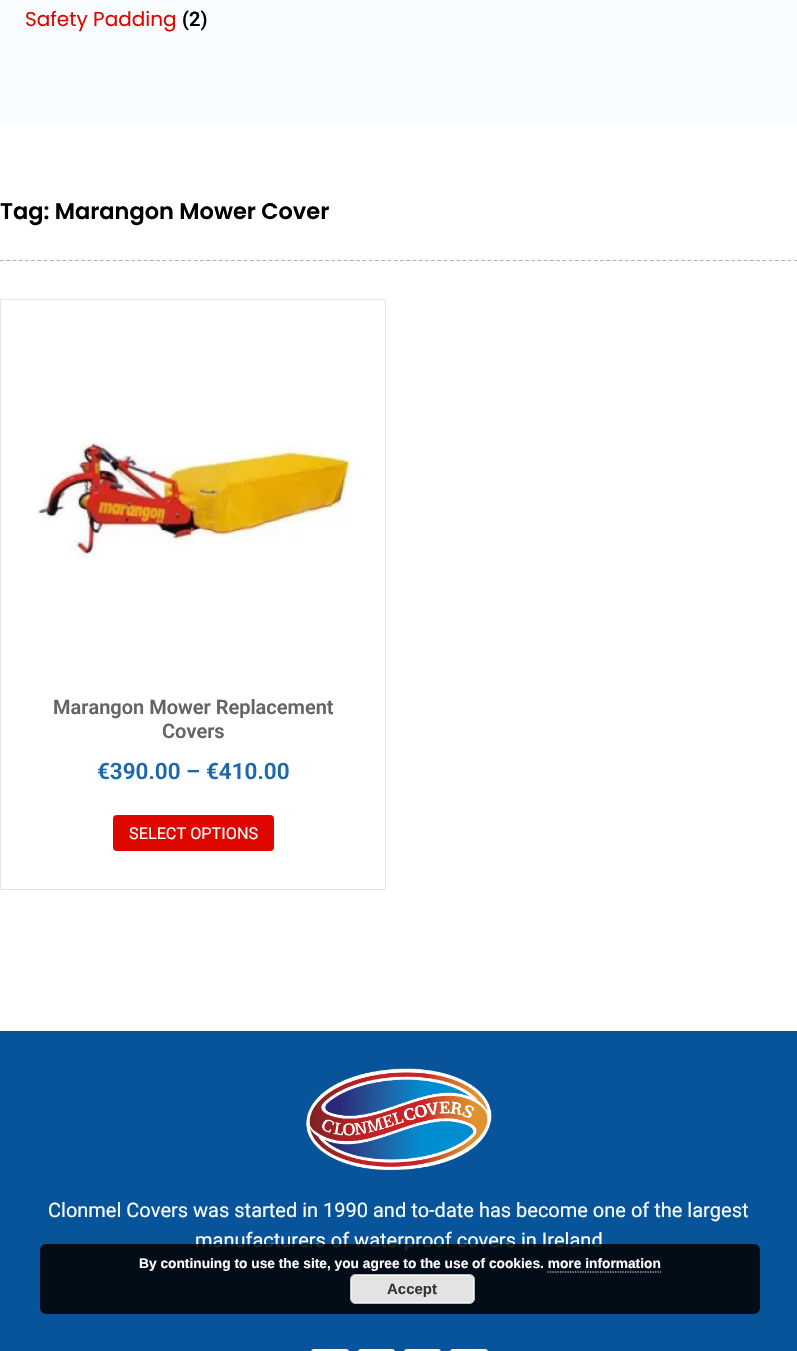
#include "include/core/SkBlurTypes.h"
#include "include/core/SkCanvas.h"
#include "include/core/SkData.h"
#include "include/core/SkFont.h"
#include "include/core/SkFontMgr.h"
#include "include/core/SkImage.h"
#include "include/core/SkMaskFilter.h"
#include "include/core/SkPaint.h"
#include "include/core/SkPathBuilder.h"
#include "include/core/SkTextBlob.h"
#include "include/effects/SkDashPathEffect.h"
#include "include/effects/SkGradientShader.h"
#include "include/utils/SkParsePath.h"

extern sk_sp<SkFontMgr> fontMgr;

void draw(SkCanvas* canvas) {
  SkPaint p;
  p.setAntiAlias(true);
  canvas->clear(SK_ColorWHITE);
  p.setColor(SkColorSetRGB(250, 253, 255));
  canvas->drawRect(SkRect::MakeLTRB(0, 0, 797, 125), p);
  p.setStyle(SkPaint::kStroke_Style);
  p.setStrokeWidth(1.2f);
  p.setColor(SkColorSetRGB(175, 175, 175));
  p.setPathEffect(SkDashPathEffect::Make({{3.75f, 2.5f}}, 0));
  canvas->drawPath(SkPathBuilder().moveTo(0, 260.5f).lineTo(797.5f, 260.5f).detach(), p);
  p.setPathEffect(nullptr);
  p.setStrokeWidth(1);
  p.setColor(SkColorSetRGB(228, 228, 228));
  canvas->drawRect(SkRect::MakeLTRB(0.5f, 299.5f, 385.5f, 889.5f), p);
  canvas->drawImageRect(SkImages::DeferredFromEncodedData(SkData::MakeFromFileName("images/1.png")), SkRect::MakeLTRB(37, 439, 353, 559), SkSamplingOptions());
  p.setStyle(SkPaint::kFill_Style);
  p.setColor(SkColorSetRGB(223, 6, 0));
  canvas->drawRoundRect(SkRect::MakeLTRB(113, 815, 274, 851), 4, 4, p);
  p.setColor(SkColorSetRGB(7, 84, 155));
  canvas->drawRect(SkRect::MakeLTRB(0, 1031, 797, 1351), p);
  canvas->drawImageRect(SkImages::DeferredFromEncodedData(SkData::MakeFromFileName("images/2.png")), SkRect::MakeLTRB(306, 1068, 492, 1170), SkSamplingOptions());
  p.setColor(SK_ColorWHITE);
  canvas->drawRoundRect(SkRect::MakeLTRB(311, 1349, 349, 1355), 4, 4, p);
  canvas->drawRoundRect(SkRect::MakeLTRB(358, 1349, 395, 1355), 4, 4, p);
  canvas->drawRoundRect(SkRect::MakeLTRB(404, 1349, 441, 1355), 4, 4, p);
  canvas->drawRoundRect(SkRect::MakeLTRB(450, 1349, 488, 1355), 4, 4, p);
  SkFont font1(fontMgr->matchFamilyStyle("Poppins", SkFontStyle::Normal()), 20);
  font1.setSubpixel(true);
  p.setColor(SkColorSetRGB(223, 6, 0));
  canvas->drawString("Safety Padding", 25, 26, font1, p);
  SkFont font2(fontMgr->matchFamilyStyle("Roboto", SkFontStyle(600, SkFontStyle::kNormal_Width, SkFontStyle::kUpright_Slant)), 20);
  font2.setSubpixel(true);
  p.setColor(SK_ColorBLACK);
  canvas->drawString("(2)", 182, 26, font2, p);
  SkFont font3(fontMgr->matchFamilyStyle("Poppins", SkFontStyle(600, SkFontStyle::kNormal_Width, SkFontStyle::kUpright_Slant)), 22.5f);
  font3.setSubpixel(true);
  canvas->drawString("Tag: Marangon Mower Cover", 0, 219, font3, p);
  p.setColor(SkColorSetRGB(100, 100, 100));
  canvas->drawString("Marangon Mower Replacement", 53, 714, font2, p);
  canvas->drawString("Covers", 162, 738, font2, p);
  SkFont font4(fontMgr->matchFamilyStyle("Roboto", SkFontStyle(600, SkFontStyle::kNormal_Width, SkFontStyle::kUpright_Slant)), 22.5f);
  font4.setSubpixel(true);
  p.setColor(SkColorSetRGB(29, 104, 172));
  canvas->drawString("€390.00 – €410.00", 97, 779, font4, p);
  SkFont font5(fontMgr->matchFamilyStyle("Roboto", SkFontStyle::Normal()), 16.25f);
  font5.setSubpixel(true);
  p.setColor(SK_ColorWHITE);
  canvas->drawString("SELECT OPTIONS", 129, 839, font5, p);
  SkFont font6(fontMgr->matchFamilyStyle("Roboto", SkFontStyle::Normal()), 20);
  font6.setSubpixel(true);
  canvas->drawString("Clonmel Covers was started in 1990 and to-date has become one of the largest", 48, 1217, font6, p);
  canvas->drawString("manufacturers of waterproof covers in Ireland", 195, 1247, font6, p);
  p.setColor(SkColorSetARGB(217, 0, 0, 0));
  canvas->drawRoundRect(SkRect::MakeLTRB(40, 1244, 760, 1314), 6, 6, p);
  SkFont font7(fontMgr->matchFamilyStyle("Liberation Sans", SkFontStyle::Bold()), 13.75f);
  font7.setSubpixel(true);
  p.setColor(SK_ColorWHITE);
  canvas->drawString("By continuing to use the site, you agree to the use of cookies. more information", 139, 1268, font7, p);
  p.setStyle(SkPaint::kStroke_Style);
  p.setStrokeWidth(1.2f);
  p.setPathEffect(SkDashPathEffect::Make({{1.25f, 1.25f}}, 0));
  canvas->drawPath(SkPathBuilder().moveTo(547.5f, 1272).lineTo(661, 1272).detach(), p);
  p.setPathEffect(nullptr);
  p.setStyle(SkPaint::kFill_Style);
  p.setColor(SkColorSetRGB(227, 227, 227));
  canvas->drawRoundRect(SkRect::MakeLTRB(350, 1274, 475, 1304), 6, 6, p);
  p.setStyle(SkPaint::kStroke_Style);
  p.setStrokeWidth(1);
  p.setColor(SkColorSetRGB(246, 246, 246));
  canvas->drawRoundRect(SkRect::MakeLTRB(351.5f, 1275.5f, 473.5f, 1302.5f), 4.5f, 4.5f, p);
  p.setColor(SkColorSetRGB(187, 187, 187));
  canvas->drawRoundRect(SkRect::MakeLTRB(350.5f, 1274.5f, 474.5f, 1303.5f), 5.5f, 5.5f, p);
  SkFont font8(fontMgr->matchFamilyStyle("Liberation Sans", SkFontStyle::Bold()), 15);
  font8.setSubpixel(true);
  p.setStyle(SkPaint::kFill_Style);
  p.setColor(SkColorSetRGB(51, 51, 51));
  canvas->drawString("Accept", 387, 1294, font8, p);
}
